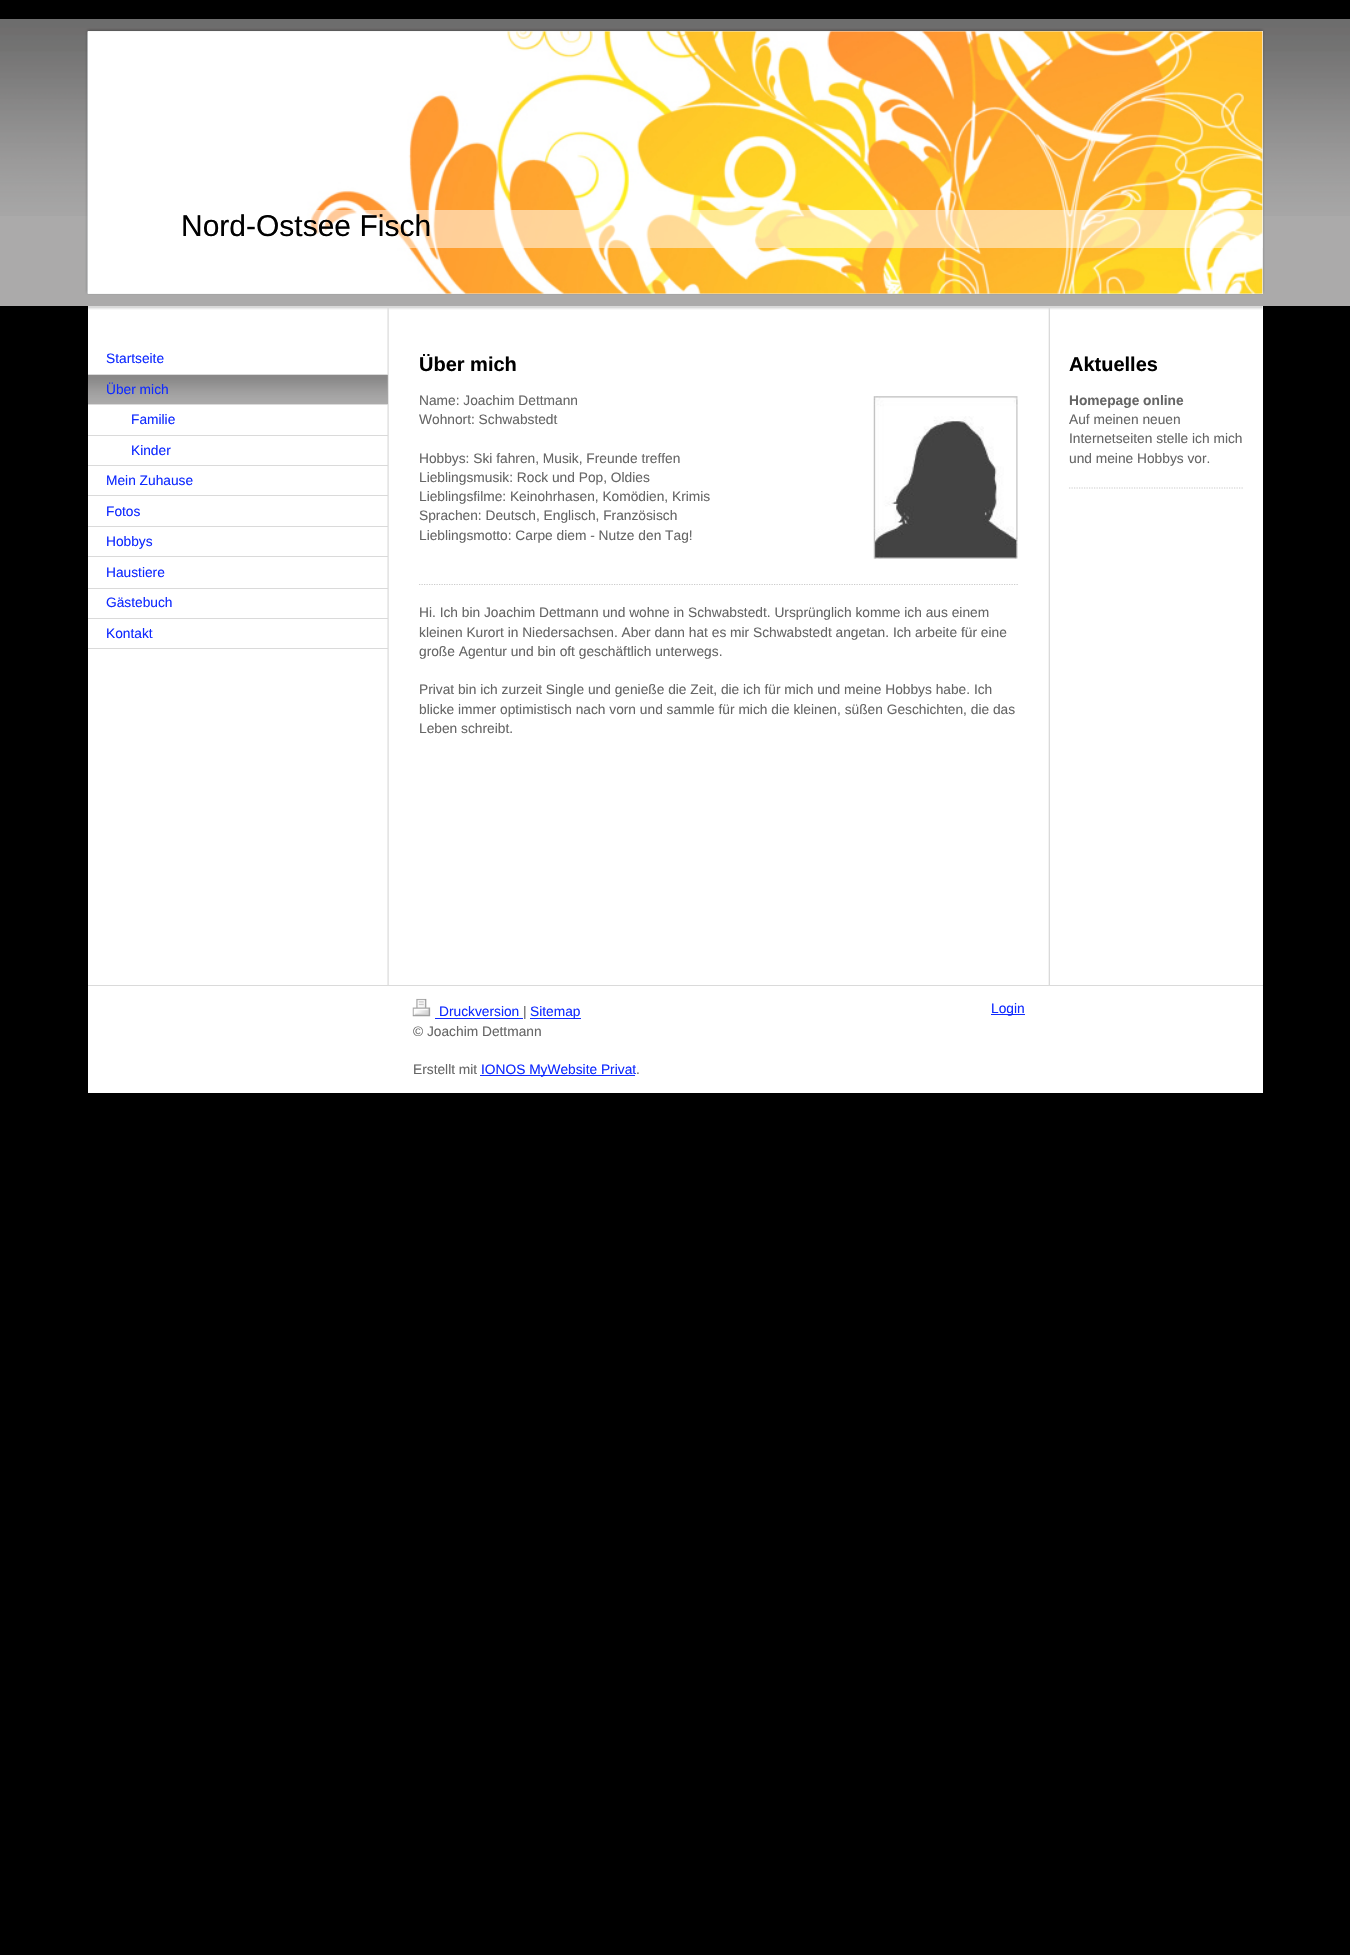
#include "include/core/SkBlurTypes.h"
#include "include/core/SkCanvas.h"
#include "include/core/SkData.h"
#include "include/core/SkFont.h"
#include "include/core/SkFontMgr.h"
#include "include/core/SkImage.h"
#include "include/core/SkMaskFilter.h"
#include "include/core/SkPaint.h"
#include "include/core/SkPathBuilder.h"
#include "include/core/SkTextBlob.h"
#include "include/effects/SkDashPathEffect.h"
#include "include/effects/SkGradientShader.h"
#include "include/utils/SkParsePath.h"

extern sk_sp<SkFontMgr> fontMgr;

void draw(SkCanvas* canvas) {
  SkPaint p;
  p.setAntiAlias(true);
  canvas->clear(SK_ColorBLACK);
  p.setColor(SkColorSetRGB(171, 170, 170));
  canvas->drawRect(SkRect::MakeLTRB(0, 19, 1350, 306), p);
  canvas->drawImageRect(SkImages::DeferredFromEncodedData(SkData::MakeFromFileName("images/1.png")), SkRect::MakeLTRB(0, 19, 1350, 216), SkSamplingOptions());
  canvas->drawImageRect(SkImages::DeferredFromEncodedData(SkData::MakeFromFileName("images/2.png")), SkRect::MakeLTRB(85, 28, 1265, 295), SkSamplingOptions());
  p.setColor(SkColorSetRGB(238, 238, 238));
  canvas->drawRect(SkRect::MakeLTRB(88, 31, 1263, 294), p);
  canvas->drawImageRect(SkImages::DeferredFromEncodedData(SkData::MakeFromFileName("images/3.png")), SkRect::MakeLTRB(87, 31, 1263, 294), SkSamplingOptions());
  p.setColor(SkColorSetARGB(128, 255, 255, 255));
  canvas->drawRect(SkRect::MakeLTRB(310, 210, 1263, 248), p);
  p.setColor(SK_ColorWHITE);
  canvas->drawRect(SkRect::MakeLTRB(88, 306, 1263, 985), p);
  canvas->drawImageRect(SkImages::DeferredFromEncodedData(SkData::MakeFromFileName("images/4.png")), SkRect::MakeLTRB(88, 306, 1263, 310), SkSamplingOptions());
  canvas->drawImageRect(SkImages::DeferredFromEncodedData(SkData::MakeFromFileName("images/5.png")), SkRect::MakeLTRB(387, 308, 1050, 985), SkSamplingOptions());
  p.setColor(SkColorSetRGB(218, 218, 218));
  canvas->drawRect(SkRect::MakeLTRB(88, 374, 388, 375), p);
  p.setColor(SkColorSetRGB(171, 170, 170));
  canvas->drawRect(SkRect::MakeLTRB(88, 375, 388, 404), p);
  canvas->drawImageRect(SkImages::DeferredFromEncodedData(SkData::MakeFromFileName("images/6.png")), SkRect::MakeLTRB(87, 375, 388, 403), SkSamplingOptions());
  p.setColor(SkColorSetRGB(218, 218, 218));
  canvas->drawRect(SkRect::MakeLTRB(88, 404, 388, 405), p);
  canvas->drawRect(SkRect::MakeLTRB(88, 435, 388, 436), p);
  canvas->drawRect(SkRect::MakeLTRB(88, 465, 388, 466), p);
  canvas->drawRect(SkRect::MakeLTRB(88, 495, 388, 496), p);
  canvas->drawRect(SkRect::MakeLTRB(88, 526, 388, 527), p);
  canvas->drawRect(SkRect::MakeLTRB(88, 556, 388, 557), p);
  canvas->drawRect(SkRect::MakeLTRB(88, 588, 388, 589), p);
  canvas->drawRect(SkRect::MakeLTRB(88, 618, 388, 619), p);
  canvas->drawRect(SkRect::MakeLTRB(88, 648, 388, 649), p);
  canvas->drawImageRect(SkImages::DeferredFromEncodedData(SkData::MakeFromFileName("images/7.png")), SkRect::MakeLTRB(873, 396, 1018, 559), SkSamplingOptions());
  p.setStyle(SkPaint::kStroke_Style);
  p.setStrokeWidth(1.2f);
  p.setColor(SkColorSetRGB(204, 204, 204));
  p.setPathEffect(SkDashPathEffect::Make({{1.25f, 1.25f}}, 0));
  canvas->drawPath(SkPathBuilder().moveTo(419, 584.5f).lineTo(1019, 584.5f).detach(), p);
  p.setPathEffect(nullptr);
  p.setPathEffect(SkDashPathEffect::Make({{1.25f, 1.25f}}, 0));
  canvas->drawPath(SkPathBuilder().moveTo(1069, 488).lineTo(1244, 488).detach(), p);
  p.setPathEffect(nullptr);
  p.setStyle(SkPaint::kFill_Style);
  p.setColor(SK_ColorWHITE);
  canvas->drawRect(SkRect::MakeLTRB(88, 986, 1263, 1093), p);
  p.setColor(SkColorSetRGB(218, 218, 218));
  canvas->drawRect(SkRect::MakeLTRB(88, 985, 1263, 986), p);
  canvas->drawImageRect(SkImages::DeferredFromEncodedData(SkData::MakeFromFileName("images/8.png")), SkRect::MakeLTRB(412, 998, 431, 1017), SkSamplingOptions());
  p.setColor(SkColorSetRGB(16, 43, 255));
  canvas->drawRect(SkRect::MakeLTRB(435, 1018, 523, 1019), p);
  canvas->drawRect(SkRect::MakeLTRB(530, 1018, 581, 1019), p);
  canvas->drawRect(SkRect::MakeLTRB(480, 1075, 635, 1076), p);
  canvas->drawRect(SkRect::MakeLTRB(991, 1014, 1025, 1015), p);
  SkFont font1(fontMgr->matchFamilyStyle("Liberation Sans", SkFontStyle::Normal()), 30);
  font1.setSubpixel(true);
  p.setColor(SK_ColorBLACK);
  canvas->drawString("Nord-Ostsee Fisch", 181, 236, font1, p);
  SkFont font2(fontMgr->matchFamilyStyle("Liberation Sans", SkFontStyle::Normal()), 13.75f);
  font2.setSubpixel(true);
  p.setColor(SkColorSetRGB(16, 43, 255));
  canvas->drawString("Startseite", 106, 363, font2, p);
  canvas->drawString("Über mich", 106, 394, font2, p);
  canvas->drawString("Familie", 131, 424, font2, p);
  canvas->drawString("Kinder", 131, 455, font2, p);
  canvas->drawString("Mein Zuhause", 106, 485, font2, p);
  canvas->drawString("Fotos", 106, 516, font2, p);
  canvas->drawString("Hobbys", 106, 546, font2, p);
  canvas->drawString("Haustiere", 106, 577, font2, p);
  canvas->drawString("Gästebuch", 106, 607, font2, p);
  canvas->drawString("Kontakt", 106, 638, font2, p);
  SkFont font3(fontMgr->matchFamilyStyle("Liberation Sans", SkFontStyle::Bold()), 20);
  font3.setSubpixel(true);
  p.setColor(SK_ColorBLACK);
  canvas->drawString("Über mich", 419, 371, font3, p);
  p.setColor(SkColorSetRGB(102, 102, 102));
  canvas->drawString("Name: Joachim Dettmann", 419, 405, font2, p);
  canvas->drawString("Wohnort: Schwabstedt", 419, 424, font2, p);
  canvas->drawString("Hobbys: Ski fahren, Musik, Freunde treffen", 419, 463, font2, p);
  canvas->drawString("Lieblingsmusik: Rock und Pop, Oldies", 419, 482, font2, p);
  canvas->drawString("Lieblingsfilme: Keinohrhasen, Komödien, Krimis", 419, 501, font2, p);
  canvas->drawString("Sprachen: Deutsch, Englisch, Französisch", 419, 520, font2, p);
  canvas->drawString("Lieblingsmotto: Carpe diem - Nutze den Tag!", 419, 540, font2, p);
  canvas->drawString("Hi. Ich bin Joachim Dettmann und wohne in Schwabstedt. Ursprünglich komme ich aus einem", 419, 617, font2, p);
  canvas->drawString("kleinen Kurort in Niedersachsen. Aber dann hat es mir Schwabstedt angetan. Ich arbeite für eine", 419, 637, font2, p);
  canvas->drawString("große Agentur und bin oft geschäftlich unterwegs.", 419, 656, font2, p);
  canvas->drawString("Privat bin ich zurzeit Single und genieße die Zeit, die ich für mich und meine Hobbys habe. Ich", 419, 694, font2, p);
  canvas->drawString("blicke immer optimistisch nach vorn und sammle für mich die kleinen, süßen Geschichten, die das", 419, 714, font2, p);
  canvas->drawString("Leben schreibt.", 419, 733, font2, p);
  p.setColor(SK_ColorBLACK);
  canvas->drawString("Aktuelles", 1069, 371, font3, p);
  SkFont font4(fontMgr->matchFamilyStyle("Liberation Sans", SkFontStyle::Bold()), 13.75f);
  font4.setSubpixel(true);
  p.setColor(SkColorSetRGB(102, 102, 102));
  canvas->drawString("Homepage online", 1069, 405, font4, p);
  canvas->drawString("Auf meinen neuen", 1069, 424, font2, p);
  canvas->drawString("Internetseiten stelle ich mich", 1069, 443, font2, p);
  canvas->drawString("und meine Hobbys vor.", 1069, 463, font2, p);
  p.setColor(SkColorSetRGB(16, 43, 255));
  canvas->drawString("Druckversion", 439, 1016, font2, p);
  p.setColor(SkColorSetRGB(102, 102, 102));
  canvas->drawString("|", 523, 1016, font2, p);
  p.setColor(SkColorSetRGB(16, 43, 255));
  canvas->drawString("Sitemap", 530, 1016, font2, p);
  canvas->save();
  canvas->clipRect(SkRect::MakeLTRB(413, 999, 1025, 1080));
  p.setColor(SkColorSetRGB(102, 102, 102));
  canvas->drawString("© Joachim Dettmann", 413, 1036, font2, p);
  canvas->restore();
  canvas->drawString("Erstellt mit", 413, 1074, font2, p);
  p.setColor(SkColorSetRGB(16, 43, 255));
  canvas->drawString("IONOS MyWebsite Privat", 481, 1074, font2, p);
  p.setColor(SkColorSetRGB(102, 102, 102));
  canvas->drawString(".", 636, 1074, font2, p);
  p.setColor(SkColorSetRGB(16, 43, 255));
  canvas->drawString("Login", 991, 1013, font2, p);
}
